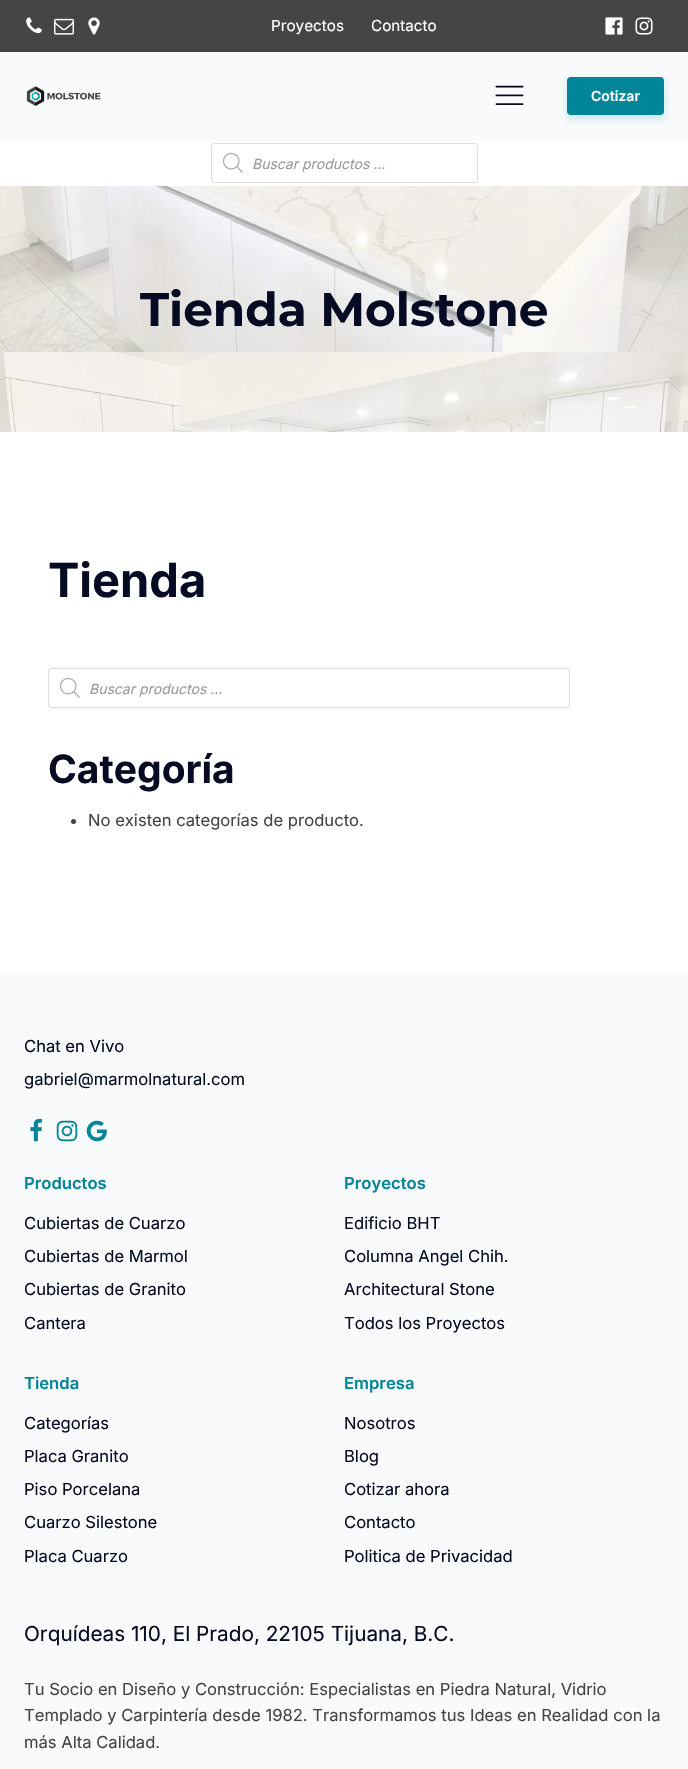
#include "include/core/SkBlurTypes.h"
#include "include/core/SkCanvas.h"
#include "include/core/SkData.h"
#include "include/core/SkFont.h"
#include "include/core/SkFontMgr.h"
#include "include/core/SkImage.h"
#include "include/core/SkMaskFilter.h"
#include "include/core/SkPaint.h"
#include "include/core/SkPathBuilder.h"
#include "include/core/SkTextBlob.h"
#include "include/effects/SkDashPathEffect.h"
#include "include/effects/SkGradientShader.h"
#include "include/utils/SkParsePath.h"

extern sk_sp<SkFontMgr> fontMgr;

void draw(SkCanvas* canvas) {
  SkPaint p;
  p.setAntiAlias(true);
  canvas->clear(SK_ColorWHITE);
  p.setColor(SkColorSetRGB(70, 69, 67));
  canvas->drawRect(SkRect::MakeLTRB(0, 0, 688, 52), p);
  canvas->drawImageRect(SkImages::DeferredFromEncodedData(SkData::MakeFromFileName("images/1.png")), SkRect::MakeLTRB(26, 17, 42, 34), SkSamplingOptions());
  canvas->drawImageRect(SkImages::DeferredFromEncodedData(SkData::MakeFromFileName("images/2.png")), SkRect::MakeLTRB(54, 18, 74, 35), SkSamplingOptions());
  canvas->drawImageRect(SkImages::DeferredFromEncodedData(SkData::MakeFromFileName("images/3.png")), SkRect::MakeLTRB(88, 17, 100, 35), SkSamplingOptions());
  canvas->drawImageRect(SkImages::DeferredFromEncodedData(SkData::MakeFromFileName("images/4.png")), SkRect::MakeLTRB(605, 17, 623, 35), SkSamplingOptions());
  canvas->drawImageRect(SkImages::DeferredFromEncodedData(SkData::MakeFromFileName("images/5.png")), SkRect::MakeLTRB(635, 17, 653, 35), SkSamplingOptions());
  p.setColor(SkColorSetRGB(249, 250, 251));
  canvas->drawRect(SkRect::MakeLTRB(0, 52, 688, 140), p);
  canvas->drawImageRect(SkImages::DeferredFromEncodedData(SkData::MakeFromFileName("images/6.png")), SkRect::MakeLTRB(26, 86, 101, 106), SkSamplingOptions());
  canvas->drawImageRect(SkImages::DeferredFromEncodedData(SkData::MakeFromFileName("images/7.png")), SkRect::MakeLTRB(495, 85, 524, 105), SkSamplingOptions());
  p.setColor(SkColorSetARGB(51, 0, 133, 153));
  p.setMaskFilter(SkMaskFilter::MakeBlur(kNormal_SkBlurStyle, 4.5f));
  canvas->drawRoundRect(SkRect::MakeLTRB(567, 81, 664, 119), 4, 4, p);
  p.setMaskFilter(nullptr);
  p.setColor(SkColorSetRGB(0, 133, 153));
  canvas->drawRoundRect(SkRect::MakeLTRB(567, 77, 664, 115), 4, 4, p);
  p.setStyle(SkPaint::kStroke_Style);
  p.setStrokeWidth(1);
  p.setColor(SkColorSetRGB(221, 221, 221));
  canvas->drawRoundRect(SkRect::MakeLTRB(211.5f, 143.5f, 477.5f, 182.5f), 2.5f, 2.5f, p);
  canvas->drawImageRect(SkImages::DeferredFromEncodedData(SkData::MakeFromFileName("images/8.png")), SkRect::MakeLTRB(223, 153, 243, 173), SkSamplingOptions());
  canvas->drawImageRect(SkImages::DeferredFromEncodedData(SkData::MakeFromFileName("images/9.png")), SkRect::MakeLTRB(0, 186, 688, 432), SkSamplingOptions());
  canvas->drawRoundRect(SkRect::MakeLTRB(48.5f, 668.5f, 569.5f, 707.5f), 2.5f, 2.5f, p);
  canvas->drawImageRect(SkImages::DeferredFromEncodedData(SkData::MakeFromFileName("images/8.png")), SkRect::MakeLTRB(60, 678, 80, 698), SkSamplingOptions());
  p.setStyle(SkPaint::kFill_Style);
  p.setColor(SkColorSetRGB(68, 68, 68));
  canvas->drawCircle(73.5f, 821.5f, 2.5f, p);
  p.setColor(SkColorSetRGB(249, 250, 251));
  canvas->drawRect(SkRect::MakeLTRB(0, 973, 688, 1769), p);
  canvas->drawImageRect(SkImages::DeferredFromEncodedData(SkData::MakeFromFileName("images/10.png")), SkRect::MakeLTRB(30, 1119, 42, 1142), SkSamplingOptions());
  canvas->drawImageRect(SkImages::DeferredFromEncodedData(SkData::MakeFromFileName("images/11.png")), SkRect::MakeLTRB(56, 1120, 78, 1142), SkSamplingOptions());
  canvas->drawImageRect(SkImages::DeferredFromEncodedData(SkData::MakeFromFileName("images/12.png")), SkRect::MakeLTRB(86, 1120, 107, 1142), SkSamplingOptions());
  SkFont font1(fontMgr->matchFamilyStyle("Inter", SkFontStyle::Normal()), 15.25f);
  font1.setSubpixel(true);
  p.setColor(SK_ColorWHITE);
  canvas->drawString("Proyectos", 271, 31, font1, p);
  canvas->drawString("Contacto", 371, 31, font1, p);
  SkFont font2(fontMgr->matchFamilyStyle("Inter", SkFontStyle(600, SkFontStyle::kNormal_Width, SkFontStyle::kUpright_Slant)), 14);
  font2.setSubpixel(true);
  canvas->drawString("Cotizar", 591, 101, font2, p);
  SkFont font3(fontMgr->matchFamilyStyle("Inter", SkFontStyle::Italic()), 14);
  font3.setSubpixel(true);
  p.setColor(SkColorSetRGB(153, 153, 153));
  canvas->drawString("Buscar productos ...", 252, 169, font3, p);
  SkFont font4(fontMgr->matchFamilyStyle("Montserrat", SkFontStyle::Bold()), 47);
  font4.setSubpixel(true);
  p.setColor(SkColorSetRGB(6, 11, 35));
  canvas->drawString("Tienda Molstone", 140, 326, font4, p);
  SkFont font5(fontMgr->matchFamilyStyle("Inter", SkFontStyle::Bold()), 47);
  font5.setSubpixel(true);
  canvas->drawString("Tienda", 48, 597, font5, p);
  p.setColor(SkColorSetRGB(153, 153, 153));
  canvas->drawString("Buscar productos ...", 89, 694, font3, p);
  SkFont font6(fontMgr->matchFamilyStyle("Inter", SkFontStyle::Bold()), 39);
  font6.setSubpixel(true);
  p.setColor(SkColorSetRGB(6, 11, 35));
  canvas->drawString("Categoría", 48, 783, font6, p);
  SkFont font7(fontMgr->matchFamilyStyle("Inter", SkFontStyle::Normal()), 16.6f);
  font7.setSubpixel(true);
  p.setColor(SkColorSetRGB(68, 68, 68));
  canvas->drawString("No existen categorías de producto.", 88, 826, font7, p);
  p.setColor(SkColorSetRGB(6, 11, 35));
  canvas->drawString("Chat en Vivo", 24, 1052, font7, p);
  canvas->drawString("gabriel@marmolnatural.com", 24, 1085, font7, p);
  SkFont font8(fontMgr->matchFamilyStyle("Inter", SkFontStyle(600, SkFontStyle::kNormal_Width, SkFontStyle::kUpright_Slant)), 16.6f);
  font8.setSubpixel(true);
  p.setColor(SkColorSetRGB(0, 133, 153));
  canvas->drawString("Productos", 24, 1189, font8, p);
  p.setColor(SkColorSetRGB(6, 11, 35));
  canvas->drawString("Cubiertas de Cuarzo", 24, 1229, font7, p);
  canvas->drawString("Cubiertas de Marmol", 24, 1262, font7, p);
  canvas->drawString("Cubiertas de Granito", 24, 1295, font7, p);
  canvas->drawString("Cantera", 24, 1329, font7, p);
  p.setColor(SkColorSetRGB(0, 133, 153));
  canvas->drawString("Proyectos", 344, 1189, font8, p);
  p.setColor(SkColorSetRGB(6, 11, 35));
  canvas->drawString("Edificio BHT", 344, 1229, font7, p);
  canvas->drawString("Columna Angel Chih.", 344, 1262, font7, p);
  canvas->drawString("Architectural Stone", 344, 1295, font7, p);
  canvas->drawString("Todos los Proyectos", 344, 1329, font7, p);
  p.setColor(SkColorSetRGB(0, 133, 153));
  canvas->drawString("Tienda", 24, 1389, font8, p);
  p.setColor(SkColorSetRGB(6, 11, 35));
  canvas->drawString("Categorías", 24, 1429, font7, p);
  canvas->drawString("Placa Granito", 24, 1462, font7, p);
  canvas->drawString("Piso Porcelana", 24, 1495, font7, p);
  canvas->drawString("Cuarzo Silestone", 24, 1528, font7, p);
  canvas->drawString("Placa Cuarzo", 24, 1562, font7, p);
  p.setColor(SkColorSetRGB(0, 133, 153));
  canvas->drawString("Empresa", 344, 1389, font8, p);
  p.setColor(SkColorSetRGB(6, 11, 35));
  canvas->drawString("Nosotros", 344, 1429, font7, p);
  canvas->drawString("Blog", 344, 1462, font7, p);
  canvas->drawString("Cotizar ahora", 344, 1495, font7, p);
  canvas->drawString("Contacto", 344, 1528, font7, p);
  canvas->drawString("Politica de Privacidad", 344, 1562, font7, p);
  SkFont font9(fontMgr->matchFamilyStyle("Inter", SkFontStyle::Normal()), 20.75f);
  font9.setSubpixel(true);
  canvas->drawString("Orquídeas 110, El Prado, 22105 Tijuana, B.C.", 24, 1641, font9, p);
  p.setColor(SkColorSetRGB(68, 68, 68));
  canvas->drawString("Tu Socio en Diseño y Construcción: Especialistas en Piedra Natural, Vidrio", 24, 1695, font7, p);
  canvas->drawString("Templado y Carpintería desde 1982. Transformamos tus Ideas en Realidad con la", 24, 1721, font7, p);
  canvas->drawString("más Alta Calidad.", 24, 1748, font7, p);
}
